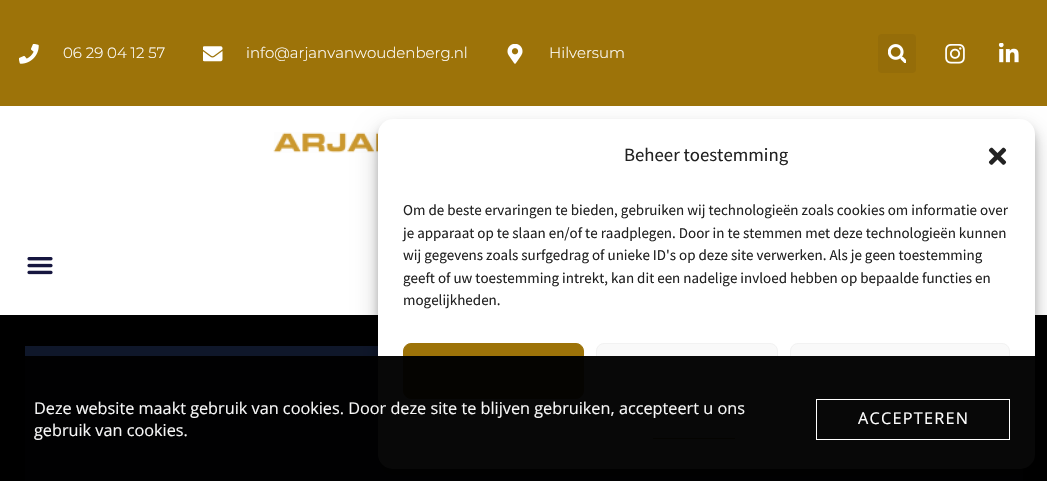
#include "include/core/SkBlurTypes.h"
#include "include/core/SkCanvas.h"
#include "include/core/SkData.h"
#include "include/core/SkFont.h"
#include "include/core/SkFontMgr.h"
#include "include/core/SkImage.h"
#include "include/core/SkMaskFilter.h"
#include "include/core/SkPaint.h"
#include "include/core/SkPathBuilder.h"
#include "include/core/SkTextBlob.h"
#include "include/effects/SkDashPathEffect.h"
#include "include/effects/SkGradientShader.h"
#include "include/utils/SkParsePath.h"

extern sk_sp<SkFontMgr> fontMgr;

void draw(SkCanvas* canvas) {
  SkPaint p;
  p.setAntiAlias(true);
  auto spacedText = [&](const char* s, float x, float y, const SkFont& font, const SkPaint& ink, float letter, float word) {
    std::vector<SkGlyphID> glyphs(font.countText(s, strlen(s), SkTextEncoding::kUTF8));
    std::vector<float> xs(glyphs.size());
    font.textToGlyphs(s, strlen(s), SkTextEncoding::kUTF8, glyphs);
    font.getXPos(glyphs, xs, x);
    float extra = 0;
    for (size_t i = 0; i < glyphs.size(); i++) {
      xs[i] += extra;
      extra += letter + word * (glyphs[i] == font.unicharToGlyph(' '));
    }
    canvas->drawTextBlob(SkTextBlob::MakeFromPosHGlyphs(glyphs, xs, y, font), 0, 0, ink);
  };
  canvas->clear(SK_ColorBLACK);
  p.setColor(SkColorSetRGB(157, 115, 9));
  canvas->drawRect(SkRect::MakeLTRB(0, 0, 1047, 106), p);
  canvas->drawImageRect(SkImages::DeferredFromEncodedData(SkData::MakeFromFileName("images/1.png")), SkRect::MakeLTRB(19, 44, 39, 64), SkSamplingOptions());
  canvas->drawImageRect(SkImages::DeferredFromEncodedData(SkData::MakeFromFileName("images/2.png")), SkRect::MakeLTRB(203, 46, 223, 62), SkSamplingOptions());
  canvas->drawImageRect(SkImages::DeferredFromEncodedData(SkData::MakeFromFileName("images/3.png")), SkRect::MakeLTRB(507, 44, 523, 64), SkSamplingOptions());
  p.setColor(SkColorSetRGB(149, 109, 9));
  canvas->drawRoundRect(SkRect::MakeLTRB(878, 34, 916, 73), 4, 4, p);
  canvas->drawImageRect(SkImages::DeferredFromEncodedData(SkData::MakeFromFileName("images/4.png")), SkRect::MakeLTRB(888, 44, 906, 63), SkSamplingOptions());
  canvas->drawImageRect(SkImages::DeferredFromEncodedData(SkData::MakeFromFileName("images/5.png")), SkRect::MakeLTRB(945, 44, 965, 64), SkSamplingOptions());
  canvas->drawImageRect(SkImages::DeferredFromEncodedData(SkData::MakeFromFileName("images/6.png")), SkRect::MakeLTRB(998, 43, 1019, 63), SkSamplingOptions());
  p.setColor(SK_ColorWHITE);
  canvas->drawRect(SkRect::MakeLTRB(0, 106, 1047, 315), p);
  canvas->drawImageRect(SkImages::DeferredFromEncodedData(SkData::MakeFromFileName("images/7.png")), SkRect::MakeLTRB(273, 132, 379, 153), SkSamplingOptions());
  canvas->drawImageRect(SkImages::DeferredFromEncodedData(SkData::MakeFromFileName("images/8.png")), SkRect::MakeLTRB(27, 257, 53, 275), SkSamplingOptions());
  p.setColor(SkColorSetRGB(15, 23, 42));
  canvas->drawRect(SkRect::MakeLTRB(25, 346, 1023, 481), p);
  p.setColor(SkColorSetARGB(59, 0, 0, 0));
  p.setMaskFilter(SkMaskFilter::MakeBlur(kNormal_SkBlurStyle, 4));
  canvas->drawRoundRect(SkRect::MakeLTRB(378, 126, 1035, 476), 15, 15, p);
  p.setMaskFilter(nullptr);
  p.setColor(SkColorSetARGB(48, 0, 0, 0));
  p.setMaskFilter(SkMaskFilter::MakeBlur(kNormal_SkBlurStyle, 12.5f));
  canvas->drawRoundRect(SkRect::MakeLTRB(378, 131, 1035, 481), 15, 15, p);
  p.setMaskFilter(nullptr);
  p.setColor(SK_ColorWHITE);
  canvas->drawRoundRect(SkRect::MakeLTRB(378, 119, 1035, 469), 15, 15, p);
  canvas->drawImageRect(SkImages::DeferredFromEncodedData(SkData::MakeFromFileName("images/9.png")), SkRect::MakeLTRB(988, 147, 1007, 165), SkSamplingOptions());
  p.setColor(SkColorSetRGB(157, 115, 9));
  canvas->drawRoundRect(SkRect::MakeLTRB(403.5f, 343.5f, 583.5f, 398.5f), 7.5f, 7.5f, p);
  p.setStyle(SkPaint::kStroke_Style);
  p.setStrokeWidth(1);
  canvas->drawRoundRect(SkRect::MakeLTRB(403.5f, 343.5f, 583.5f, 398.5f), 7.5f, 7.5f, p);
  p.setStyle(SkPaint::kFill_Style);
  p.setColor(SkColorSetRGB(249, 249, 249));
  canvas->drawRoundRect(SkRect::MakeLTRB(596.5f, 343.5f, 777.5f, 398.5f), 7.5f, 7.5f, p);
  p.setStyle(SkPaint::kStroke_Style);
  p.setColor(SkColorSetRGB(242, 242, 242));
  canvas->drawRoundRect(SkRect::MakeLTRB(596.5f, 343.5f, 777.5f, 398.5f), 7.5f, 7.5f, p);
  p.setStyle(SkPaint::kFill_Style);
  p.setColor(SkColorSetRGB(249, 249, 249));
  canvas->drawRoundRect(SkRect::MakeLTRB(790.5f, 343.5f, 1009.5f, 398.5f), 7.5f, 7.5f, p);
  p.setStyle(SkPaint::kStroke_Style);
  p.setColor(SkColorSetRGB(242, 242, 242));
  canvas->drawRoundRect(SkRect::MakeLTRB(790.5f, 343.5f, 1009.5f, 398.5f), 7.5f, 7.5f, p);
  p.setStyle(SkPaint::kFill_Style);
  p.setColor(SkColorSetRGB(157, 115, 9));
  canvas->drawRect(SkRect::MakeLTRB(653, 438, 735, 439), p);
  p.setColor(SkColorSetARGB(247, 0, 0, 0));
  canvas->drawRect(SkRect::MakeLTRB(25, 356, 1035, 481), p);
  p.setStyle(SkPaint::kStroke_Style);
  p.setColor(SK_ColorWHITE);
  canvas->drawRect(SkRect::MakeLTRB(816.5f, 399.5f, 1009.5f, 439.5f), p);
  SkFont font1(fontMgr->matchFamilyStyle("Montserrat", SkFontStyle(300, SkFontStyle::kNormal_Width, SkFontStyle::kUpright_Slant)), 15);
  font1.setSubpixel(true);
  p.setStyle(SkPaint::kFill_Style);
  canvas->drawString("06 29 04 12 57", 63, 58, font1, p);
  canvas->drawString("info@arjanvanwoudenberg.nl", 246, 58, font1, p);
  canvas->drawString("Hilversum", 549, 58, font1, p);
  SkFont font2(fontMgr->matchFamilyStyle("Source Sans Pro", SkFontStyle::Normal()), 18.75f);
  font2.setSubpixel(true);
  p.setColor(SkColorSetRGB(34, 34, 34));
  canvas->drawString("Beheer toestemming", 624, 161, font2, p);
  SkFont font3(fontMgr->matchFamilyStyle("Source Sans Pro", SkFontStyle::Normal()), 15);
  font3.setSubpixel(true);
  canvas->drawString("Om de beste ervaringen te bieden, gebruiken wij technologieën zoals cookies om informatie over", 403, 215, font3, p);
  canvas->drawString("je apparaat op te slaan en/of te raadplegen. Door in te stemmen met deze technologieën kunnen", 403, 238, font3, p);
  canvas->drawString("wij gegevens zoals surfgedrag of unieke ID's op deze site verwerken. Als je geen toestemming", 403, 260, font3, p);
  canvas->drawString("geeft of uw toestemming intrekt, kan dit een nadelige invloed hebben op bepaalde functies en", 403, 283, font3, p);
  canvas->drawString("mogelijkheden.", 403, 305, font3, p);
  SkFont font4(fontMgr->matchFamilyStyle("Open Sans", SkFontStyle::Normal()), 16.25f);
  font4.setSubpixel(true);
  p.setColor(SkColorSetRGB(247, 247, 247));
  canvas->drawString("Deze website maakt gebruik van cookies. Door deze site te blijven gebruiken, accepteert u ons", 34, 414, font4, p);
  canvas->drawString("gebruik van cookies.", 34, 436, font4, p);
  p.setColor(SK_ColorWHITE);
  spacedText("ACCEPTEREN", 858, 424, font4, p, 1.25f, 0);
}
